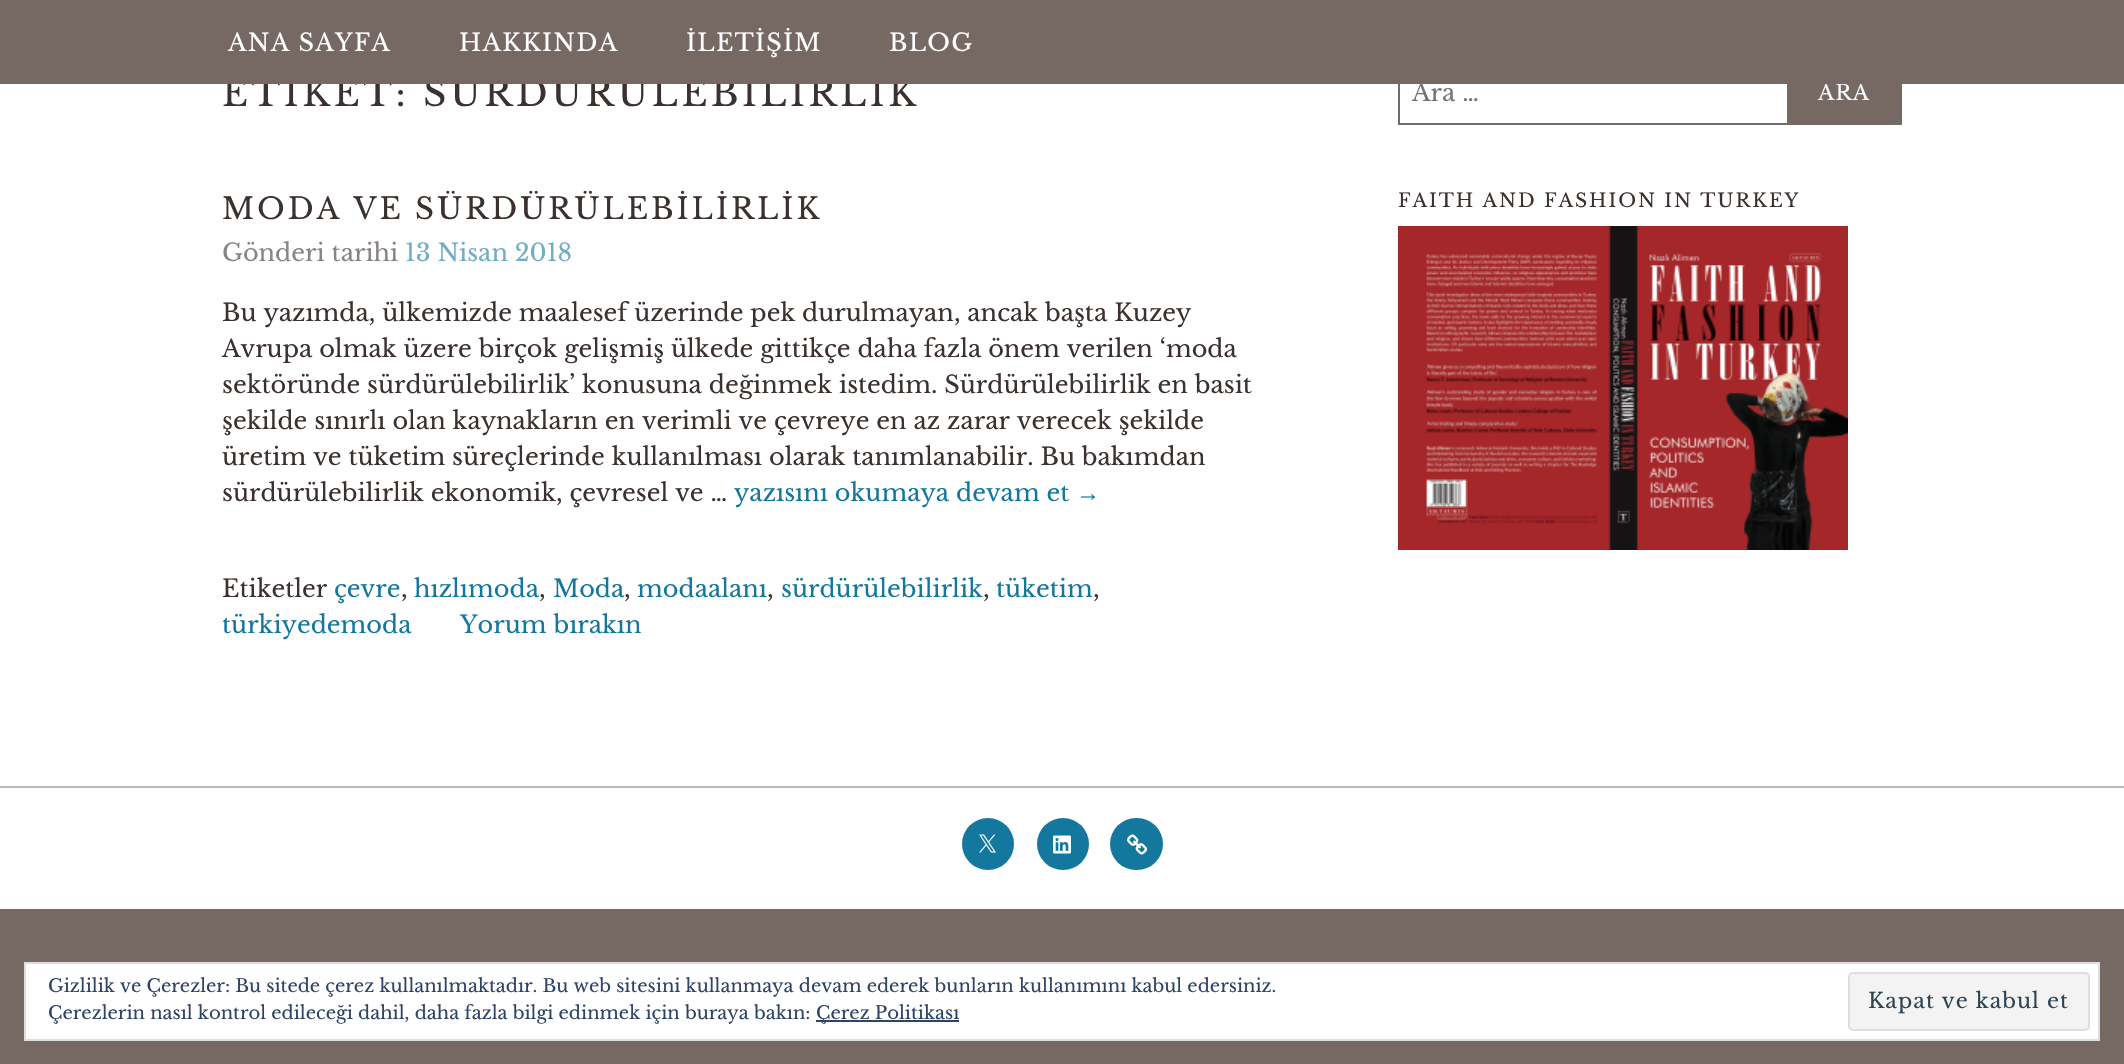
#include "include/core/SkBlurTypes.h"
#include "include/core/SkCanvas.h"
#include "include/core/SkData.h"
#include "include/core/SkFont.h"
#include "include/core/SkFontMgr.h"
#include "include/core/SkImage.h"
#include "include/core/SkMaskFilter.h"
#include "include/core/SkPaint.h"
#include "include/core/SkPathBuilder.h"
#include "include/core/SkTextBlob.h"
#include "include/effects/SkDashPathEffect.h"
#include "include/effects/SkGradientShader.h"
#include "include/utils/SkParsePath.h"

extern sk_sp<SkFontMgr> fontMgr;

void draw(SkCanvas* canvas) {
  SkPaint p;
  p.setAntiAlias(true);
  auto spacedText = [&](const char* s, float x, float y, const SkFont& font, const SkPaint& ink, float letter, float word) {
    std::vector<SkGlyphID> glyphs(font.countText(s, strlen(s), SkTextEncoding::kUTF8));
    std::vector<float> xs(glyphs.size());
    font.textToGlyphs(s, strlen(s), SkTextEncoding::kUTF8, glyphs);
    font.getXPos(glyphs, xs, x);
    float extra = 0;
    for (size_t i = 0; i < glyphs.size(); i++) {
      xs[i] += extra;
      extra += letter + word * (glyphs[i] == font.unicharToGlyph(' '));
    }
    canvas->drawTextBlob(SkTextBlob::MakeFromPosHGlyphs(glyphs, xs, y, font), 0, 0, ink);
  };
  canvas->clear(SK_ColorWHITE);
  p.setStyle(SkPaint::kStroke_Style);
  p.setStrokeWidth(2);
  p.setColor(SkColorSetRGB(109, 109, 109));
  canvas->drawRect(SkRect::MakeLTRB(1399, 63, 1901, 124), p);
  p.setStyle(SkPaint::kFill_Style);
  p.setColor(SkColorSetRGB(118, 104, 98));
  canvas->drawRect(SkRect::MakeLTRB(1787, 84, 1902, 125), p);
  canvas->drawImageRect(SkImages::DeferredFromEncodedData(SkData::MakeFromFileName("images/1.png")), SkRect::MakeLTRB(1398, 226, 1848, 550), SkSamplingOptions());
  p.setColor(SkColorSetRGB(187, 187, 187));
  canvas->drawRect(SkRect::MakeLTRB(0, 786, 2124, 788), p);
  p.setColor(SkColorSetRGB(19, 119, 158));
  canvas->drawCircle(988, 844, 26, p);
  canvas->drawImageRect(SkImages::DeferredFromEncodedData(SkData::MakeFromFileName("images/2.png")), SkRect::MakeLTRB(979, 834, 996, 853), SkSamplingOptions());
  canvas->drawCircle(1063, 844, 26, p);
  canvas->drawImageRect(SkImages::DeferredFromEncodedData(SkData::MakeFromFileName("images/3.png")), SkRect::MakeLTRB(1053, 835, 1071, 854), SkSamplingOptions());
  canvas->drawRoundRect(SkRect::MakeLTRB(1110, 818, 1163, 870), 26, 26, p);
  canvas->drawImageRect(SkImages::DeferredFromEncodedData(SkData::MakeFromFileName("images/4.png")), SkRect::MakeLTRB(1127, 834, 1147, 855), SkSamplingOptions());
  p.setColor(SkColorSetRGB(118, 104, 98));
  canvas->drawRect(SkRect::MakeLTRB(0, 909, 2124, 1064), p);
  p.setColor(SK_ColorWHITE);
  canvas->drawRect(SkRect::MakeLTRB(25, 963, 2099, 1040), p);
  p.setStyle(SkPaint::kStroke_Style);
  p.setColor(SkColorSetRGB(222, 222, 222));
  canvas->drawRect(SkRect::MakeLTRB(25, 963, 2099, 1040), p);
  p.setStyle(SkPaint::kFill_Style);
  p.setColor(SkColorSetRGB(46, 68, 103));
  canvas->drawRect(SkRect::MakeLTRB(816, 1020, 959, 1022), p);
  p.setColor(SkColorSetRGB(243, 243, 243));
  canvas->drawRoundRect(SkRect::MakeLTRB(1849, 973, 2089, 1030), 4, 4, p);
  p.setStyle(SkPaint::kStroke_Style);
  p.setColor(SkColorSetRGB(222, 222, 222));
  canvas->drawRoundRect(SkRect::MakeLTRB(1849, 973, 2089, 1030), 4, 4, p);
  SkFont font1(fontMgr->matchFamilyStyle("Libre Baskerville", SkFontStyle::Normal()), 35.75f);
  font1.setSubpixel(true);
  p.setStyle(SkPaint::kFill_Style);
  p.setColor(SkColorSetRGB(59, 50, 47));
  spacedText("ETİKET: SÜRDÜRÜLEBİLİRLİK", 222, 106, font1, p, 3.6f, 0);
  SkFont font2(fontMgr->matchFamilyStyle("Libre Baskerville", SkFontStyle::Normal()), 29.4f);
  font2.setSubpixel(true);
  spacedText("MODA VE SÜRDÜRÜLEBİLİRLİK", 222, 219, font2, p, 2.9f, 0);
  SkFont font3(fontMgr->matchFamilyStyle("Libre Baskerville", SkFontStyle::Normal()), 24);
  font3.setSubpixel(true);
  p.setColor(SkColorSetRGB(137, 132, 130));
  canvas->drawString("Gönderi tarihi", 222, 261, font3, p);
  p.setColor(SkColorSetRGB(113, 173, 197));
  canvas->drawString("13 Nisan 2018", 405, 261, font3, p);
  p.setColor(SkColorSetRGB(59, 50, 47));
  canvas->drawString("Bu yazımda, ülkemizde maalesef üzerinde pek durulmayan, ancak başta Kuzey", 222, 321, font3, p);
  canvas->drawString("Avrupa olmak üzere birçok gelişmiş ülkede gittikçe daha fazla önem verilen ‘moda", 222, 357, font3, p);
  canvas->drawString("sektöründe sürdürülebilirlik’ konusuna değinmek istedim. Sürdürülebilirlik en basit", 222, 393, font3, p);
  canvas->drawString("şekilde sınırlı olan kaynakların en verimli ve çevreye en az zarar verecek şekilde", 222, 429, font3, p);
  canvas->drawString("üretim ve tüketim süreçlerinde kullanılması olarak tanımlanabilir. Bu bakımdan", 222, 465, font3, p);
  canvas->drawString("sürdürülebilirlik ekonomik, çevresel ve …", 222, 501, font3, p);
  p.setColor(SkColorSetRGB(19, 119, 158));
  canvas->drawString("yazısını okumaya devam et", 734, 501, font3, p);
  SkFont font4(fontMgr->matchFamilyStyle("Liberation Serif", SkFontStyle::Normal()), 24);
  font4.setSubpixel(true);
  canvas->drawString("→", 1076, 501, font4, p);
  p.setColor(SkColorSetRGB(59, 50, 47));
  canvas->drawString("Etiketler", 222, 597, font3, p);
  p.setColor(SkColorSetRGB(19, 119, 158));
  canvas->drawString("çevre", 334, 597, font3, p);
  p.setColor(SkColorSetRGB(59, 50, 47));
  canvas->drawString(",", 401, 597, font3, p);
  p.setColor(SkColorSetRGB(19, 119, 158));
  canvas->drawString("hızlımoda", 414, 597, font3, p);
  p.setColor(SkColorSetRGB(59, 50, 47));
  canvas->drawString(",", 539, 597, font3, p);
  p.setColor(SkColorSetRGB(19, 119, 158));
  canvas->drawString("Moda", 553, 597, font3, p);
  p.setColor(SkColorSetRGB(59, 50, 47));
  canvas->drawString(",", 624, 597, font3, p);
  p.setColor(SkColorSetRGB(19, 119, 158));
  canvas->drawString("modaalanı", 637, 597, font3, p);
  p.setColor(SkColorSetRGB(59, 50, 47));
  canvas->drawString(",", 767, 597, font3, p);
  p.setColor(SkColorSetRGB(19, 119, 158));
  canvas->drawString("sürdürülebilirlik", 781, 597, font3, p);
  p.setColor(SkColorSetRGB(59, 50, 47));
  canvas->drawString(",", 983, 597, font3, p);
  p.setColor(SkColorSetRGB(19, 119, 158));
  canvas->drawString("tüketim", 996, 597, font3, p);
  p.setColor(SkColorSetRGB(59, 50, 47));
  canvas->drawString(",", 1093, 597, font3, p);
  p.setColor(SkColorSetRGB(19, 119, 158));
  canvas->drawString("türkiyedemoda", 222, 633, font3, p);
  canvas->drawString("Yorum bırakın", 460, 633, font3, p);
  p.setColor(SkColorSetRGB(117, 117, 117));
  canvas->drawString("Ara …", 1412, 101, font3, p);
  SkFont font5(fontMgr->matchFamilyStyle("Libre Baskerville", SkFontStyle::Normal()), 21);
  font5.setSubpixel(true);
  p.setColor(SkColorSetRGB(246, 249, 253));
  spacedText("ARA", 1818, 100, font5, p, 1, 0);
  p.setColor(SkColorSetRGB(118, 104, 98));
  canvas->drawRect(SkRect::MakeLTRB(0, 0, 2124, 84), p);
  p.setColor(SK_ColorWHITE);
  spacedText("BLOG", 889, 51, font3, p, 1.25f, 0);
  spacedText("İLETİŞİM", 686, 51, font3, p, 1.25f, 0);
  spacedText("HAKKINDA", 459, 51, font3, p, 1.25f, 0);
  spacedText("ANA SAYFA", 228, 51, font3, p, 1.25f, 0);
  SkFont font6(fontMgr->matchFamilyStyle("Libre Baskerville", SkFontStyle::Normal()), 18.9f);
  font6.setSubpixel(true);
  p.setColor(SkColorSetRGB(59, 50, 47));
  spacedText("FAITH AND FASHION IN TURKEY", 1398, 207, font6, p, 1.9f, 0);
  SkFont font7(fontMgr->matchFamilyStyle("Libre Baskerville", SkFontStyle::Normal()), 18);
  font7.setSubpixel(true);
  p.setColor(SkColorSetRGB(46, 68, 103));
  canvas->drawString("Gizlilik ve Çerezler: Bu sitede çerez kullanılmaktadır. Bu web sitesini kullanmaya devam ederek bunların kullanımını kabul edersiniz.", 48, 992, font7, p);
  canvas->drawString("Çerezlerin nasıl kontrol edileceği dahil, daha fazla bilgi edinmek için buraya bakın:", 48, 1019, font7, p);
  canvas->drawString("Çerez Politikası", 816, 1019, font7, p);
  p.setColor(SkColorSetRGB(46, 68, 83));
  spacedText("Kapat ve kabul et", 1868, 1008, font5, p, 1, 0);
}
